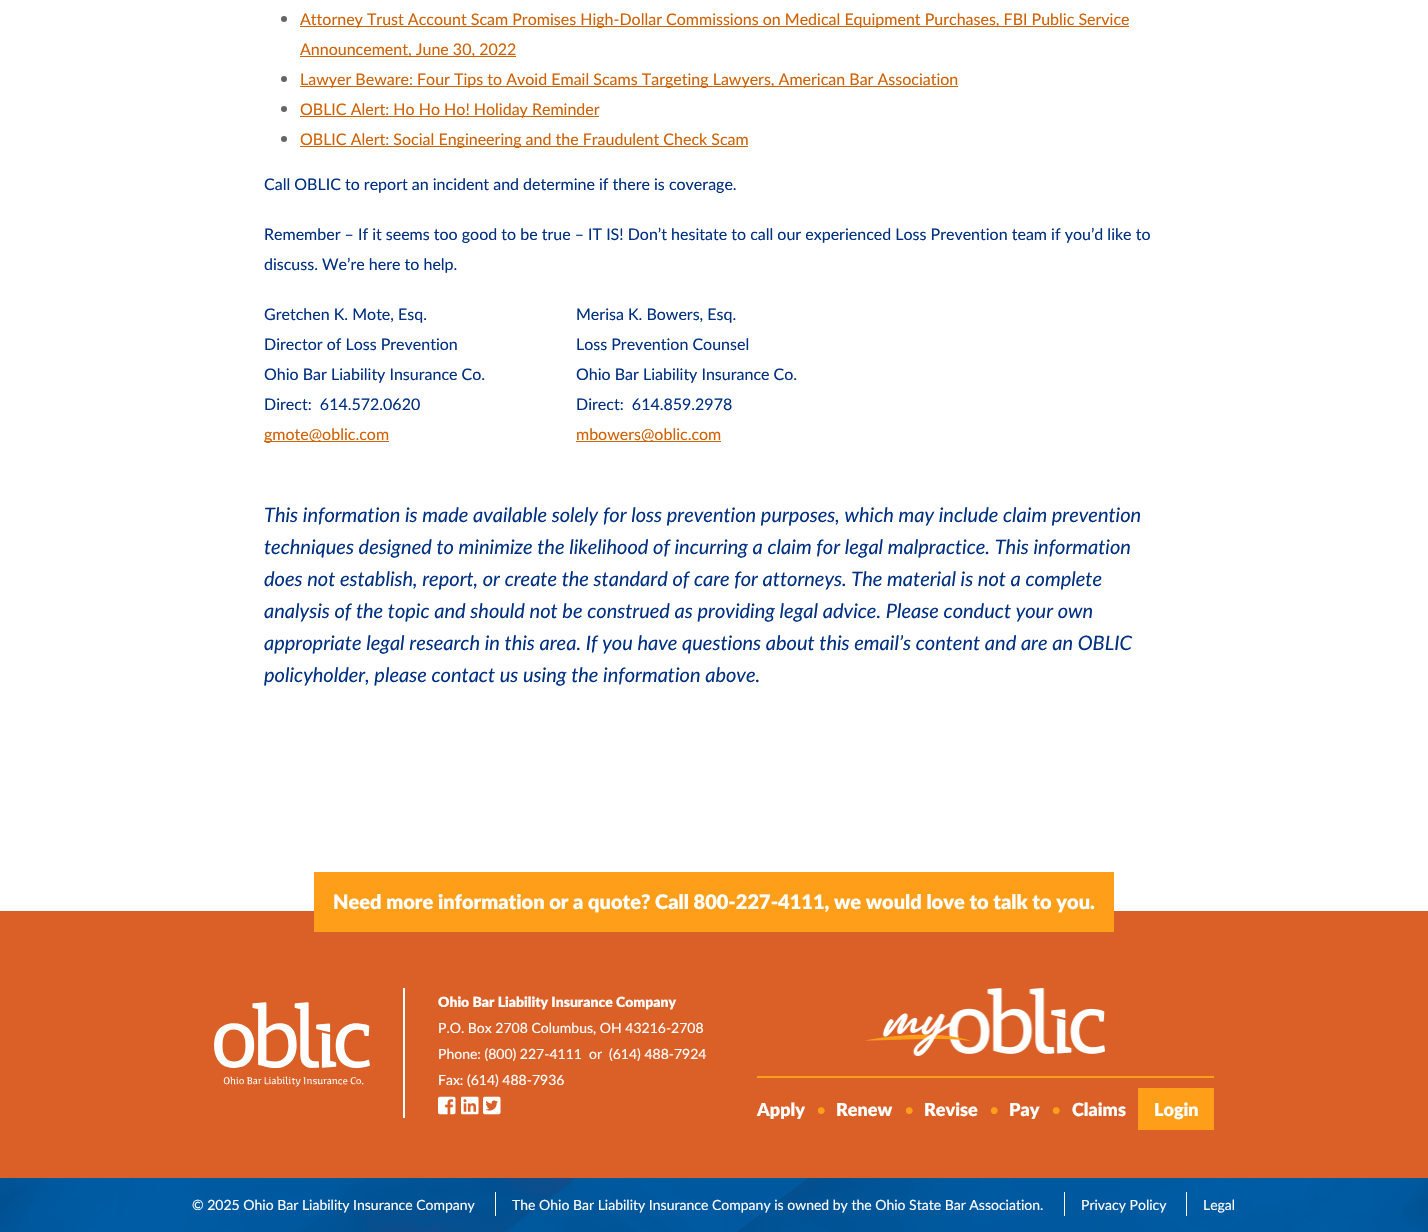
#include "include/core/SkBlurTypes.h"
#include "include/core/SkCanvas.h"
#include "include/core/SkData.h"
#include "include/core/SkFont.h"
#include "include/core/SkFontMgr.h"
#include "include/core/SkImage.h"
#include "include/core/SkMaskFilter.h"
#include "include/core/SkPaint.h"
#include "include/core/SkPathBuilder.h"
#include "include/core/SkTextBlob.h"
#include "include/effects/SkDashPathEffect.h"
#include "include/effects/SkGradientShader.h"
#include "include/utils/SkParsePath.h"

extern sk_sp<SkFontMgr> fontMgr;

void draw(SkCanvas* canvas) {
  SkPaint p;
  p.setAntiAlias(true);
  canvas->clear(SK_ColorWHITE);
  p.setColor(SkColorSetRGB(99, 101, 105));
  canvas->drawCircle(284, 19, 3, p);
  p.setColor(SkColorSetRGB(209, 97, 3));
  canvas->drawRect(SkRect::MakeLTRB(300, 26, 1129, 27), p);
  canvas->drawRect(SkRect::MakeLTRB(300, 56, 516, 57), p);
  p.setColor(SkColorSetRGB(99, 101, 105));
  canvas->drawCircle(284, 79, 3, p);
  p.setColor(SkColorSetRGB(209, 97, 3));
  canvas->drawRect(SkRect::MakeLTRB(300, 86, 958, 87), p);
  p.setColor(SkColorSetRGB(99, 101, 105));
  canvas->drawCircle(284, 109, 3, p);
  p.setColor(SkColorSetRGB(209, 97, 3));
  canvas->drawRect(SkRect::MakeLTRB(300, 116, 599, 117), p);
  p.setColor(SkColorSetRGB(99, 101, 105));
  canvas->drawCircle(284, 139, 3, p);
  p.setColor(SkColorSetRGB(209, 97, 3));
  canvas->drawRect(SkRect::MakeLTRB(300, 146, 748, 147), p);
  canvas->drawRect(SkRect::MakeLTRB(264, 441, 389, 442), p);
  canvas->drawRect(SkRect::MakeLTRB(576, 441, 721, 442), p);
  p.setColor(SkColorSetRGB(218, 96, 39));
  canvas->drawRect(SkRect::MakeLTRB(0, 911, 1428, 1178), p);
  p.setColor(SkColorSetRGB(255, 158, 24));
  canvas->drawRect(SkRect::MakeLTRB(314, 872, 1114, 932), p);
  canvas->drawImageRect(SkImages::DeferredFromEncodedData(SkData::MakeFromFileName("images/1.png")), SkRect::MakeLTRB(214, 1002, 370, 1087), SkSamplingOptions());
  p.setColor(SK_ColorWHITE);
  canvas->drawRect(SkRect::MakeLTRB(403, 988, 405, 1118), p);
  canvas->drawImageRect(SkImages::DeferredFromEncodedData(SkData::MakeFromFileName("images/2.png")), SkRect::MakeLTRB(438, 1096, 456, 1115), SkSamplingOptions());
  canvas->drawImageRect(SkImages::DeferredFromEncodedData(SkData::MakeFromFileName("images/3.png")), SkRect::MakeLTRB(461, 1096, 479, 1115), SkSamplingOptions());
  canvas->drawImageRect(SkImages::DeferredFromEncodedData(SkData::MakeFromFileName("images/4.png")), SkRect::MakeLTRB(483, 1096, 501, 1115), SkSamplingOptions());
  canvas->drawImageRect(SkImages::DeferredFromEncodedData(SkData::MakeFromFileName("images/5.png")), SkRect::MakeLTRB(865, 988, 1105, 1056), SkSamplingOptions());
  p.setColor(SkColorSetRGB(255, 158, 24));
  canvas->drawRect(SkRect::MakeLTRB(757, 1076, 1214, 1078), p);
  canvas->drawRect(SkRect::MakeLTRB(1138, 1088, 1214, 1130), p);
  canvas->drawImageRect(SkImages::DeferredFromEncodedData(SkData::MakeFromFileName("images/6.png")), SkRect::MakeLTRB(0, 1178, 1428, 1232), SkSamplingOptions());
  p.setColor(SK_ColorWHITE);
  canvas->drawRect(SkRect::MakeLTRB(495, 1192, 496, 1216), p);
  canvas->drawRect(SkRect::MakeLTRB(1064, 1192, 1065, 1216), p);
  canvas->drawRect(SkRect::MakeLTRB(1186, 1192, 1187, 1216), p);
  SkFont font1(fontMgr->matchFamilyStyle("Lato", SkFontStyle::Normal()), 16);
  font1.setSubpixel(true);
  p.setColor(SkColorSetRGB(209, 97, 3));
  canvas->drawString("Attorney Trust Account Scam Promises High-Dollar Commissions on Medical Equipment Purchases, FBI Public Service", 300, 25, font1, p);
  canvas->drawString("Announcement, June 30, 2022", 300, 55, font1, p);
  canvas->drawString("Lawyer Beware: Four Tips to Avoid Email Scams Targeting Lawyers, American Bar Association", 300, 85, font1, p);
  canvas->drawString("OBLIC Alert: Ho Ho Ho! Holiday Reminder", 300, 115, font1, p);
  canvas->drawString("OBLIC Alert: Social Engineering and the Fraudulent Check Scam", 300, 145, font1, p);
  p.setColor(SkColorSetRGB(0, 48, 130));
  canvas->drawString("Call OBLIC to report an incident and determine if there is coverage.", 264, 190, font1, p);
  canvas->drawString("Remember – If it seems too good to be true – IT IS! Don’t hesitate to call our experienced Loss Prevention team if you’d like to", 264, 240, font1, p);
  canvas->drawString("discuss. We’re here to help.", 264, 270, font1, p);
  canvas->drawString("Gretchen K. Mote, Esq.", 264, 320, font1, p);
  canvas->drawString("Director of Loss Prevention", 264, 350, font1, p);
  canvas->drawString("Ohio Bar Liability Insurance Co.", 264, 380, font1, p);
  canvas->drawString("Direct:  614.572.0620", 264, 410, font1, p);
  p.setColor(SkColorSetRGB(209, 97, 3));
  canvas->drawString("gmote@oblic.com", 264, 440, font1, p);
  p.setColor(SkColorSetRGB(0, 48, 130));
  canvas->drawString("Merisa K. Bowers, Esq.", 576, 320, font1, p);
  canvas->drawString("Loss Prevention Counsel", 576, 350, font1, p);
  canvas->drawString("Ohio Bar Liability Insurance Co.", 576, 380, font1, p);
  canvas->drawString("Direct:  614.859.2978", 576, 410, font1, p);
  p.setColor(SkColorSetRGB(209, 97, 3));
  canvas->drawString("mbowers@oblic.com", 576, 440, font1, p);
  SkFont font2(fontMgr->matchFamilyStyle("Lato", SkFontStyle::Italic()), 20);
  font2.setSubpixel(true);
  p.setColor(SkColorSetRGB(0, 48, 130));
  canvas->drawString("This information is made available solely for loss prevention purposes, which may include claim prevention", 264, 522, font2, p);
  canvas->drawString("techniques designed to minimize the likelihood of incurring a claim for legal malpractice. This information", 264, 554, font2, p);
  canvas->drawString("does not establish, report, or create the standard of care for attorneys. The material is not a complete", 264, 586, font2, p);
  canvas->drawString("analysis of the topic and should not be construed as providing legal advice. Please conduct your own", 264, 618, font2, p);
  canvas->drawString("appropriate legal research in this area. If you have questions about this email’s content and are an OBLIC", 264, 650, font2, p);
  canvas->drawString("policyholder, please contact us using the information above.", 264, 682, font2, p);
  SkFont font3(fontMgr->matchFamilyStyle("Lato", SkFontStyle(900, SkFontStyle::kNormal_Width, SkFontStyle::kUpright_Slant)), 20);
  font3.setSubpixel(true);
  p.setColor(SK_ColorWHITE);
  canvas->drawString("Need more information or a quote? Call 800-227-4111, we would love to talk to you.", 333, 909, font3, p);
  SkFont font4(fontMgr->matchFamilyStyle("Lato", SkFontStyle(900, SkFontStyle::kNormal_Width, SkFontStyle::kUpright_Slant)), 14);
  font4.setSubpixel(true);
  canvas->drawString("Ohio Bar Liability Insurance Company", 438, 1007, font4, p);
  SkFont font5(fontMgr->matchFamilyStyle("Lato", SkFontStyle::Normal()), 14);
  font5.setSubpixel(true);
  canvas->drawString("P.O. Box 2708 Columbus, OH 43216-2708", 438, 1033, font5, p);
  canvas->drawString("Phone: (800) 227-4111", 438, 1059, font5, p);
  canvas->drawString("or", 589, 1059, font5, p);
  canvas->drawString("(614) 488-7924", 609, 1059, font5, p);
  canvas->drawString("Fax: (614) 488-7936", 438, 1085, font5, p);
  SkFont font6(fontMgr->matchFamilyStyle("Lato", SkFontStyle(900, SkFontStyle::kNormal_Width, SkFontStyle::kUpright_Slant)), 18);
  font6.setSubpixel(true);
  canvas->drawString("Apply", 757, 1116, font6, p);
  SkFont font7(fontMgr->matchFamilyStyle("Lato", SkFontStyle::Normal()), 18);
  font7.setSubpixel(true);
  p.setColor(SkColorSetRGB(255, 158, 24));
  canvas->drawString("•", 816, 1116, font7, p);
  p.setColor(SK_ColorWHITE);
  canvas->drawString("Renew", 836, 1116, font6, p);
  p.setColor(SkColorSetRGB(255, 158, 24));
  canvas->drawString("•", 904, 1116, font7, p);
  p.setColor(SK_ColorWHITE);
  canvas->drawString("Revise", 924, 1116, font6, p);
  p.setColor(SkColorSetRGB(255, 158, 24));
  canvas->drawString("•", 989, 1116, font7, p);
  p.setColor(SK_ColorWHITE);
  canvas->drawString("Pay", 1009, 1116, font6, p);
  p.setColor(SkColorSetRGB(255, 158, 24));
  canvas->drawString("•", 1051, 1116, font7, p);
  p.setColor(SK_ColorWHITE);
  canvas->drawString("Claims", 1072, 1116, font6, p);
  canvas->drawString("Login", 1154, 1116, font6, p);
  canvas->drawString("© 2025 Ohio Bar Liability Insurance Company", 192, 1210, font5, p);
  canvas->drawString("The Ohio Bar Liability Insurance Company is owned by the Ohio State Bar Association.", 512, 1210, font5, p);
  canvas->drawString("Privacy Policy", 1081, 1210, font5, p);
  canvas->drawString("Legal", 1203, 1210, font5, p);
}
